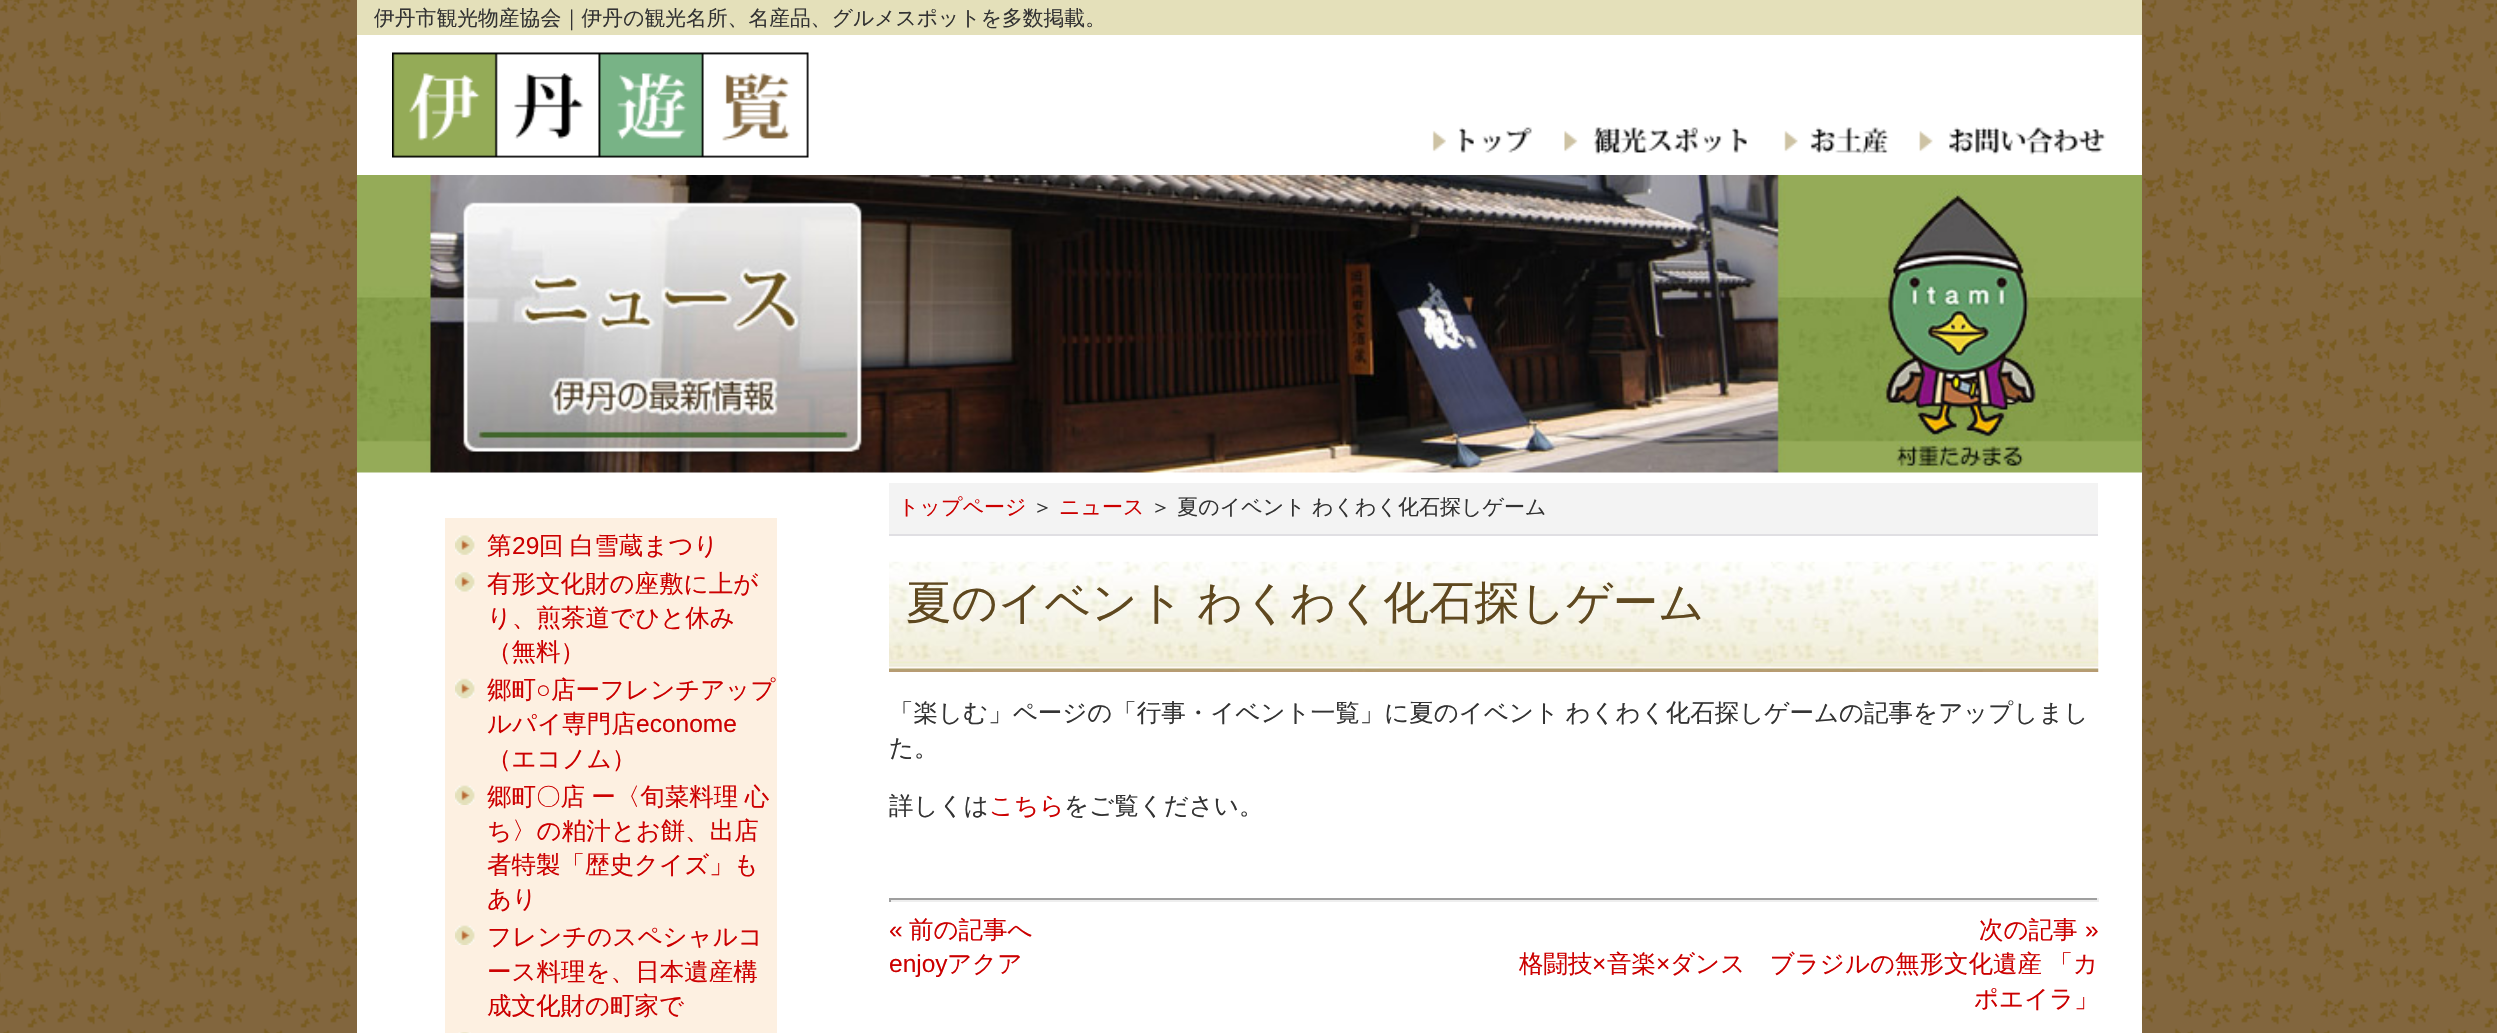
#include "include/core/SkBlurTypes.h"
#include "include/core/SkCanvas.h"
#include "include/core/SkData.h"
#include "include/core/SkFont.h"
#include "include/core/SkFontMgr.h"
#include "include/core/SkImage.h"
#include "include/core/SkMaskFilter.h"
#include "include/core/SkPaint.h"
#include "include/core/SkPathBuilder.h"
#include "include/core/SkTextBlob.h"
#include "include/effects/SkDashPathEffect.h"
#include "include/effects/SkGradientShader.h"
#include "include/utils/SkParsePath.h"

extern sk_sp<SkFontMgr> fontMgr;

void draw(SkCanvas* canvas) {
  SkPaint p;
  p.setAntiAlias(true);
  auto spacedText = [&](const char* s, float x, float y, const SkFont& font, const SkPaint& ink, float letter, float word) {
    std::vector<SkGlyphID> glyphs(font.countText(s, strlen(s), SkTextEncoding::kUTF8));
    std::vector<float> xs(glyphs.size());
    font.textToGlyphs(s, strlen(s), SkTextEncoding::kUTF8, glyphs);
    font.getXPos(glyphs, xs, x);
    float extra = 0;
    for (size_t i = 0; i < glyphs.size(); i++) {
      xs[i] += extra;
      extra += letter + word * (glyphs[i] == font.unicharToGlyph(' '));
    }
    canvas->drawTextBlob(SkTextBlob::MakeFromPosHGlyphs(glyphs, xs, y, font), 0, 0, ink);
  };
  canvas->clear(SK_ColorWHITE);
  canvas->drawImageRect(SkImages::DeferredFromEncodedData(SkData::MakeFromFileName("images/1.png")), SkRect::MakeLTRB(0, 0, 2497, 1033), SkSamplingOptions());
  p.setColor(SK_ColorWHITE);
  canvas->drawRect(SkRect::MakeLTRB(357, 35, 2142, 1033), p);
  p.setColor(SkColorSetRGB(228, 224, 186));
  canvas->drawRect(SkRect::MakeLTRB(357, 0, 2142, 35), p);
  canvas->drawImageRect(SkImages::DeferredFromEncodedData(SkData::MakeFromFileName("images/2.png")), SkRect::MakeLTRB(392, 52, 809, 158), SkSamplingOptions());
  canvas->drawImageRect(SkImages::DeferredFromEncodedData(SkData::MakeFromFileName("images/3.png")), SkRect::MakeLTRB(1432, 127, 1532, 153), SkSamplingOptions());
  canvas->drawImageRect(SkImages::DeferredFromEncodedData(SkData::MakeFromFileName("images/4.png")), SkRect::MakeLTRB(1564, 127, 1747, 155), SkSamplingOptions());
  canvas->drawImageRect(SkImages::DeferredFromEncodedData(SkData::MakeFromFileName("images/5.png")), SkRect::MakeLTRB(1784, 127, 1889, 155), SkSamplingOptions());
  canvas->drawImageRect(SkImages::DeferredFromEncodedData(SkData::MakeFromFileName("images/6.png")), SkRect::MakeLTRB(1919, 127, 2106, 155), SkSamplingOptions());
  canvas->drawImageRect(SkImages::DeferredFromEncodedData(SkData::MakeFromFileName("images/7.png")), SkRect::MakeLTRB(357, 175, 2142, 473), SkSamplingOptions());
  p.setColor(SkColorSetRGB(253, 240, 225));
  canvas->drawRect(SkRect::MakeLTRB(445, 518, 777, 1033), p);
  canvas->drawImageRect(SkImages::DeferredFromEncodedData(SkData::MakeFromFileName("images/8.png")), SkRect::MakeLTRB(455, 535, 475, 555), SkSamplingOptions());
  canvas->drawImageRect(SkImages::DeferredFromEncodedData(SkData::MakeFromFileName("images/9.png")), SkRect::MakeLTRB(455, 572, 475, 592), SkSamplingOptions());
  canvas->drawImageRect(SkImages::DeferredFromEncodedData(SkData::MakeFromFileName("images/10.png")), SkRect::MakeLTRB(455, 678, 475, 699), SkSamplingOptions());
  canvas->drawImageRect(SkImages::DeferredFromEncodedData(SkData::MakeFromFileName("images/11.png")), SkRect::MakeLTRB(455, 785, 475, 805), SkSamplingOptions());
  canvas->drawImageRect(SkImages::DeferredFromEncodedData(SkData::MakeFromFileName("images/11.png")), SkRect::MakeLTRB(455, 925, 475, 945), SkSamplingOptions());
  canvas->drawImageRect(SkImages::DeferredFromEncodedData(SkData::MakeFromFileName("images/12.png")), SkRect::MakeLTRB(458, 1032, 471, 1033), SkSamplingOptions());
  p.setColor(SkColorSetRGB(243, 243, 243));
  canvas->drawRect(SkRect::MakeLTRB(889, 483, 2098, 534), p);
  p.setColor(SkColorSetRGB(224, 223, 227));
  canvas->drawRect(SkRect::MakeLTRB(889, 534, 2098, 536), p);
  canvas->drawImageRect(SkImages::DeferredFromEncodedData(SkData::MakeFromFileName("images/13.png")), SkRect::MakeLTRB(889, 561, 2099, 672), SkSamplingOptions());
  p.setColor(SkColorSetRGB(159, 159, 159));
  canvas->drawRect(SkRect::MakeLTRB(889, 898, 2098, 900), p);
  p.setColor(SkColorSetRGB(238, 238, 238));
  canvas->drawRect(SkRect::MakeLTRB(2097, 898, 2099, 902), p);
  canvas->drawRect(SkRect::MakeLTRB(889, 900, 2098, 902), p);
  p.setColor(SkColorSetRGB(159, 159, 159));
  canvas->drawRect(SkRect::MakeLTRB(889, 898, 891, 902), p);
  SkFont font1(fontMgr->matchFamilyStyle("WenQuanYi Zen Hei", SkFontStyle(500, SkFontStyle::kNormal_Width, SkFontStyle::kUpright_Slant)), 20.8f);
  font1.setSubpixel(true);
  p.setColor(SkColorSetRGB(51, 51, 51));
  canvas->drawString("伊丹市観光物産協会｜伊丹の観光名所、名産品、グルメスポットを多数掲載。", 374, 25, font1, p);
  SkFont font2(fontMgr->matchFamilyStyle("WenQuanYi Zen Hei", SkFontStyle(500, SkFontStyle::kNormal_Width, SkFontStyle::kUpright_Slant)), 24.5f);
  font2.setSubpixel(true);
  p.setColor(SkColorSetRGB(204, 0, 0));
  canvas->drawString("第", 487, 554, font2, p);
  SkFont font3(fontMgr->matchFamilyStyle("Liberation Sans", SkFontStyle::Normal()), 24.5f);
  font3.setSubpixel(true);
  canvas->drawString("29", 512, 554, font3, p);
  spacedText("回 白雪蔵まつり", 539, 554, font2, p, 0, -1);
  canvas->drawString("有形文化財の座敷に上が", 487, 592, font2, p);
  canvas->drawString("り、煎茶道でひと休み", 487, 626, font2, p);
  canvas->drawString("（無料）", 487, 660, font2, p);
  canvas->drawString("郷町", 487, 698, font2, p);
  canvas->drawString("○", 536, 698, font3, p);
  canvas->drawString("店ーフレンチアップ", 551, 698, font2, p);
  canvas->drawString("ルパイ専門店", 487, 732, font2, p);
  canvas->drawString("econome", 636, 732, font3, p);
  canvas->drawString("（エコノム）", 487, 767, font2, p);
  spacedText("郷町〇店 ー〈旬菜料理 心", 487, 805, font2, p, 0, -1);
  canvas->drawString("ち〉の粕汁とお餅、出店", 487, 839, font2, p);
  canvas->drawString("者特製「歴史クイズ」も", 487, 873, font2, p);
  canvas->drawString("あり", 487, 907, font2, p);
  canvas->drawString("フレンチのスペシャルコ", 487, 945, font2, p);
  canvas->drawString("ース料理を、日本遺産構", 487, 980, font2, p);
  canvas->drawString("成文化財の町家で", 487, 1014, font2, p);
  SkFont font4(fontMgr->matchFamilyStyle("WenQuanYi Zen Hei", SkFontStyle(500, SkFontStyle::kNormal_Width, SkFontStyle::kUpright_Slant)), 21);
  font4.setSubpixel(true);
  canvas->drawString("トップページ", 898, 514, font4, p);
  p.setColor(SkColorSetRGB(51, 51, 51));
  canvas->drawString("＞", 1032, 514, font4, p);
  p.setColor(SkColorSetRGB(204, 0, 0));
  canvas->drawString("ニュース", 1059, 514, font4, p);
  p.setColor(SkColorSetRGB(51, 51, 51));
  canvas->drawString("＞ 夏のイベント わくわく化石探しゲーム", 1150, 514, font4, p);
  SkFont font5(fontMgr->matchFamilyStyle("WenQuanYi Zen Hei", SkFontStyle(500, SkFontStyle::kNormal_Width, SkFontStyle::kUpright_Slant)), 45.5f);
  font5.setSubpixel(true);
  p.setColor(SkColorSetRGB(95, 72, 31));
  spacedText("夏のイベント わくわく化石探しゲーム", 906, 618, font5, p, 0, -1);
  p.setColor(SkColorSetRGB(51, 51, 51));
  spacedText("「楽しむ」ページの「行事・イベント一覧」に夏のイベント わくわく化石探しゲームの記事をアップしまし", 889, 721, font2, p, 0, -1);
  canvas->drawString("た。", 889, 756, font2, p);
  canvas->drawString("詳しくは", 889, 814, font2, p);
  p.setColor(SkColorSetRGB(204, 0, 0));
  canvas->drawString("こちら", 989, 814, font2, p);
  p.setColor(SkColorSetRGB(51, 51, 51));
  canvas->drawString("をご覧ください。", 1064, 814, font2, p);
  p.setColor(SkColorSetRGB(204, 0, 0));
  canvas->drawString("«", 889, 938, font3, p);
  canvas->drawString("前の記事へ", 909, 938, font2, p);
  canvas->drawString("enjoy", 889, 972, font3, p);
  canvas->drawString("アクア", 947, 972, font2, p);
  canvas->drawString("次の記事", 1979, 938, font2, p);
  canvas->drawString("»", 2085, 938, font3, p);
  canvas->drawString("格闘技", 1519, 972, font2, p);
  canvas->drawString("×", 1592, 972, font3, p);
  canvas->drawString("音楽", 1607, 972, font2, p);
  canvas->drawString("×", 1656, 972, font3, p);
  spacedText("ダンス　ブラジルの無形文化遺産 「カ", 1670, 972, font2, p, 0, -1);
  canvas->drawString("ポエイラ」", 1974, 1007, font2, p);
}
